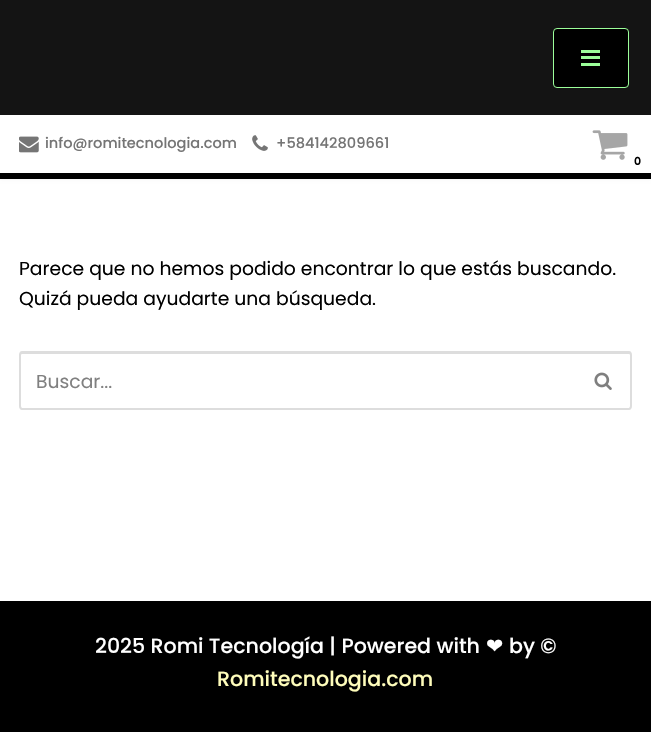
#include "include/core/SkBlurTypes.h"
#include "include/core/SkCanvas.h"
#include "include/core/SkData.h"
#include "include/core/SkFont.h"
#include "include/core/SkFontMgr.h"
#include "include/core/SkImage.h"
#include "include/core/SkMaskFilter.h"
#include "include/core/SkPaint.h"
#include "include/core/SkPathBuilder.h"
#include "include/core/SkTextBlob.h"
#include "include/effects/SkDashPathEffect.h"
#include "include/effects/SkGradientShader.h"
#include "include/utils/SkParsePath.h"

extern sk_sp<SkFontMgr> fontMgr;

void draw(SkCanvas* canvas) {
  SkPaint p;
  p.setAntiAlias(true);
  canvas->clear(SK_ColorWHITE);
  p.setColor(SkColorSetARGB(26, 0, 0, 0));
  p.setMaskFilter(SkMaskFilter::MakeBlur(kNormal_SkBlurStyle, 2));
  canvas->drawRect(SkRect::MakeLTRB(0, -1, 651, 178), p);
  p.setMaskFilter(nullptr);
  p.setColor(SkColorSetRGB(20, 20, 20));
  canvas->drawRect(SkRect::MakeLTRB(0, 0, 651, 115), p);
  p.setColor(SK_ColorBLACK);
  canvas->drawRoundRect(SkRect::MakeLTRB(553.5f, 28.5f, 628.5f, 87.5f), 3.5f, 3.5f, p);
  p.setStyle(SkPaint::kStroke_Style);
  p.setStrokeWidth(1);
  p.setColor(SkColorSetRGB(156, 255, 154));
  canvas->drawRoundRect(SkRect::MakeLTRB(553.5f, 28.5f, 628.5f, 87.5f), 3.5f, 3.5f, p);
  p.setStyle(SkPaint::kFill_Style);
  canvas->drawRect(SkRect::MakeLTRB(581, 50, 600, 53), p);
  canvas->drawRect(SkRect::MakeLTRB(581, 56, 600, 59), p);
  canvas->drawRect(SkRect::MakeLTRB(581, 63, 600, 66), p);
  p.setColor(SK_ColorWHITE);
  canvas->drawRect(SkRect::MakeLTRB(0, 115, 651, 173), p);
  p.setColor(SK_ColorBLACK);
  canvas->drawRect(SkRect::MakeLTRB(0, 173, 651, 179), p);
  canvas->drawImageRect(SkImages::DeferredFromEncodedData(SkData::MakeFromFileName("images/1.png")), SkRect::MakeLTRB(19, 136, 39, 153), SkSamplingOptions());
  canvas->drawImageRect(SkImages::DeferredFromEncodedData(SkData::MakeFromFileName("images/2.png")), SkRect::MakeLTRB(252, 135, 268, 151), SkSamplingOptions());
  canvas->drawImageRect(SkImages::DeferredFromEncodedData(SkData::MakeFromFileName("images/3.png")), SkRect::MakeLTRB(592, 130, 628, 160), SkSamplingOptions());
  p.setColor(SkColorSetRGB(221, 221, 221));
  canvas->drawPath(SkPathBuilder(SkPathFillType::kEvenOdd).moveTo(22, 351).lineTo(576, 351).lineTo(576, 410).lineTo(22, 410).cubicTo(20, 410, 19, 408, 19, 406).lineTo(19, 355).cubicTo(19, 353, 20, 351, 22, 351).close().moveTo(22, 354).lineTo(576, 354).lineTo(576, 408).lineTo(22, 408).cubicTo(22, 408, 21, 407, 21, 406).lineTo(21, 355).cubicTo(21, 354, 22, 354, 22, 354).close().detach(), p);
  canvas->drawPath(SkPathBuilder(SkPathFillType::kEvenOdd).moveTo(576, 351).lineTo(629, 351).cubicTo(631, 351, 632, 353, 632, 355).lineTo(632, 406).cubicTo(632, 408, 631, 410, 629, 410).lineTo(576, 410).close().moveTo(576, 354).lineTo(629, 354).cubicTo(629, 354, 630, 354, 630, 355).lineTo(630, 406).cubicTo(630, 407, 629, 408, 629, 408).lineTo(576, 408).close().detach(), p);
  canvas->drawImageRect(SkImages::DeferredFromEncodedData(SkData::MakeFromFileName("images/4.png")), SkRect::MakeLTRB(594, 372, 612, 390), SkSamplingOptions());
  p.setColor(SK_ColorBLACK);
  canvas->drawRect(SkRect::MakeLTRB(0, 601, 651, 732), p);
  SkFont font1(fontMgr->matchFamilyStyle("Poppins", SkFontStyle(500, SkFontStyle::kNormal_Width, SkFontStyle::kUpright_Slant)), 14.6f);
  font1.setSubpixel(true);
  p.setColor(SkColorSetRGB(117, 117, 117));
  canvas->drawString("info@romitecnologia.com", 45, 148, font1, p);
  canvas->drawString("+584142809661", 276, 148, font1, p);
  SkFont font2(fontMgr->matchFamilyStyle("Poppins", SkFontStyle(600, SkFontStyle::kNormal_Width, SkFontStyle::kUpright_Slant)), 11);
  font2.setSubpixel(true);
  p.setColor(SK_ColorBLACK);
  canvas->drawString("0", 634, 165, font2, p);
  SkFont font3(fontMgr->matchFamilyStyle("Poppins", SkFontStyle::Normal()), 18.75f);
  font3.setSubpixel(true);
  canvas->drawString("Parece que no hemos podido encontrar lo que estás buscando.", 19, 275, font3, p);
  canvas->drawString("Quizá pueda ayudarte una búsqueda.", 19, 305, font3, p);
  p.setColor(SkColorSetRGB(128, 128, 128));
  canvas->drawString("Buscar...", 36, 388, font3, p);
  SkFont font4(fontMgr->matchFamilyStyle("Poppins", SkFontStyle(500, SkFontStyle::kNormal_Width, SkFontStyle::kUpright_Slant)), 20.6f);
  font4.setSubpixel(true);
  p.setColor(SK_ColorWHITE);
  canvas->drawString("2025 Romi Tecnología | Powered with", 95, 653, font4, p);
  SkFont font5(fontMgr->matchFamilyStyle("DejaVu Sans", SkFontStyle::Normal()), 20.6f);
  font5.setSubpixel(true);
  canvas->drawString("❤", 486, 653, font5, p);
  canvas->drawString("by ©", 509, 653, font4, p);
  p.setColor(SkColorSetRGB(255, 253, 187));
  canvas->drawString("Romitecnologia.com", 217, 686, font4, p);
}
